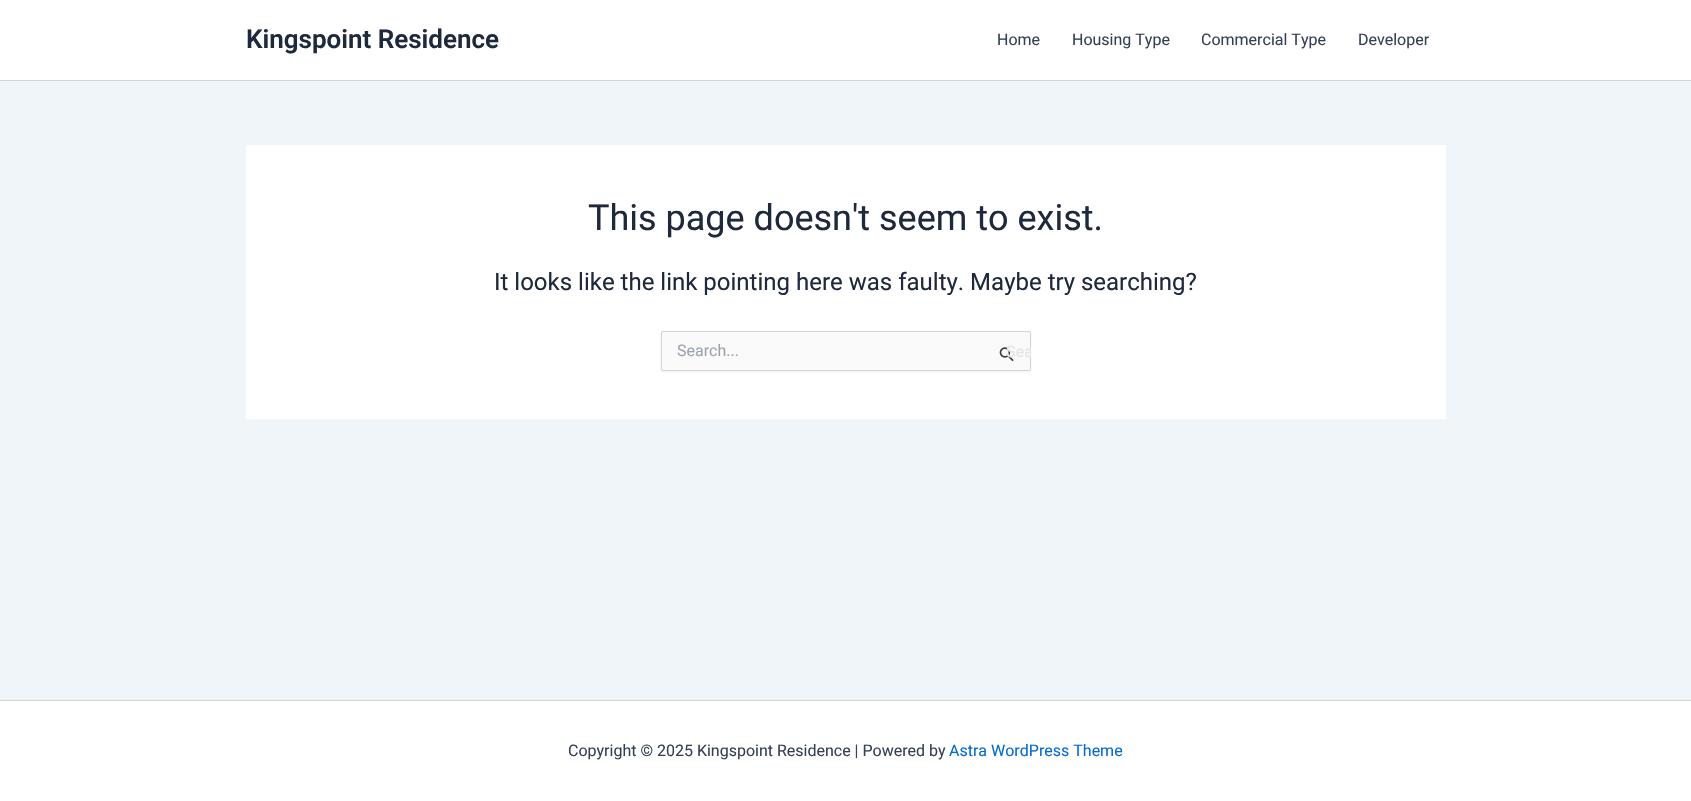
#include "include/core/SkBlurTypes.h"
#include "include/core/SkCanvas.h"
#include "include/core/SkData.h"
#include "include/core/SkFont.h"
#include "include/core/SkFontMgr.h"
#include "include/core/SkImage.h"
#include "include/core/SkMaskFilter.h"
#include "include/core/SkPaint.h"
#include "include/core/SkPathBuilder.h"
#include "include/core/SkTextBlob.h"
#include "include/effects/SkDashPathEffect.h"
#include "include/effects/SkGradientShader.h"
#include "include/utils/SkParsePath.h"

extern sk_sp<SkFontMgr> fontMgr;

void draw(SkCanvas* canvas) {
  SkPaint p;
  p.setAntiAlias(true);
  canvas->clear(SkColorSetRGB(240, 245, 250));
  p.setColor(SK_ColorWHITE);
  canvas->drawRect(SkRect::MakeLTRB(0, 0, 1691, 80), p);
  p.setColor(SkColorSetRGB(209, 213, 219));
  canvas->drawRect(SkRect::MakeLTRB(0, 80, 1691, 81), p);
  p.setColor(SK_ColorWHITE);
  canvas->drawRect(SkRect::MakeLTRB(246, 145, 1446, 419), p);
  p.setColor(SkColorSetARGB(13, 0, 0, 0));
  p.setMaskFilter(SkMaskFilter::MakeBlur(kNormal_SkBlurStyle, 1));
  canvas->drawRoundRect(SkRect::MakeLTRB(661, 332, 1031, 372), 2, 2, p);
  p.setMaskFilter(nullptr);
  p.setColor(SkColorSetRGB(250, 250, 250));
  canvas->drawRoundRect(SkRect::MakeLTRB(661.5f, 331.5f, 1030.5f, 370.5f), 1.5f, 1.5f, p);
  p.setStyle(SkPaint::kStroke_Style);
  p.setStrokeWidth(1);
  p.setColor(SkColorSetRGB(209, 213, 219));
  canvas->drawRoundRect(SkRect::MakeLTRB(661.5f, 331.5f, 1030.5f, 370.5f), 1.5f, 1.5f, p);
  canvas->drawImageRect(SkImages::DeferredFromEncodedData(SkData::MakeFromFileName("images/1.png")), SkRect::MakeLTRB(999, 347, 1014, 362), SkSamplingOptions());
  p.setStyle(SkPaint::kFill_Style);
  p.setColor(SK_ColorWHITE);
  canvas->drawRect(SkRect::MakeLTRB(0, 701, 1691, 801), p);
  p.setColor(SkColorSetRGB(209, 213, 219));
  canvas->drawRect(SkRect::MakeLTRB(0, 700, 1691, 701), p);
  SkFont font1(fontMgr->matchFamilyStyle("Roboto", SkFontStyle(600, SkFontStyle::kNormal_Width, SkFontStyle::kUpright_Slant)), 26);
  font1.setSubpixel(true);
  p.setColor(SkColorSetRGB(30, 41, 59));
  canvas->drawString("Kingspoint Residence", 246, 48, font1, p);
  SkFont font2(fontMgr->matchFamilyStyle("Roboto", SkFontStyle::Normal()), 16);
  font2.setSubpixel(true);
  p.setColor(SkColorSetRGB(51, 65, 85));
  canvas->drawString("Home", 997, 45, font2, p);
  canvas->drawString("Housing Type", 1072, 45, font2, p);
  canvas->drawString("Commercial Type", 1201, 45, font2, p);
  canvas->drawString("Developer", 1358, 45, font2, p);
  SkFont font3(fontMgr->matchFamilyStyle("Roboto", SkFontStyle::Normal()), 36);
  font3.setSubpixel(true);
  p.setColor(SkColorSetRGB(30, 41, 59));
  canvas->drawString("This page doesn't seem to exist.", 588, 230, font3, p);
  SkFont font4(fontMgr->matchFamilyStyle("Roboto", SkFontStyle::Normal()), 24);
  font4.setSubpixel(true);
  canvas->drawString("It looks like the link pointing here was faulty. Maybe try searching?", 494, 290, font4, p);
  p.setColor(SkColorSetRGB(156, 163, 175));
  canvas->drawString("Search...", 677, 356, font2, p);
  canvas->save();
  canvas->clipPath(SkPathBuilder().moveTo(988, 331).lineTo(1029, 331).cubicTo(1030, 331, 1031, 332, 1031, 333).lineTo(1031, 371).cubicTo(1031, 372, 1030, 373, 1029, 373).lineTo(988, 373).cubicTo(987, 373, 986, 372, 986, 371).lineTo(986, 333).cubicTo(986, 332, 987, 331, 988, 331).close().detach(), true);
  SkFont font5(fontMgr->matchFamilyStyle("Roboto", SkFontStyle(500, SkFontStyle::kNormal_Width, SkFontStyle::kUpright_Slant)), 16);
  font5.setSubpixel(true);
  p.setColor(SkColorSetRGB(230, 231, 231));
  canvas->drawString("Sea", 1006, 357, font5, p);
  canvas->restore();
  p.setColor(SkColorSetRGB(51, 65, 85));
  canvas->drawString("Copyright © 2025 Kingspoint Residence | Powered by", 568, 756, font2, p);
  p.setColor(SkColorSetRGB(4, 107, 210));
  canvas->drawString("Astra WordPress Theme", 949, 756, font2, p);
}
